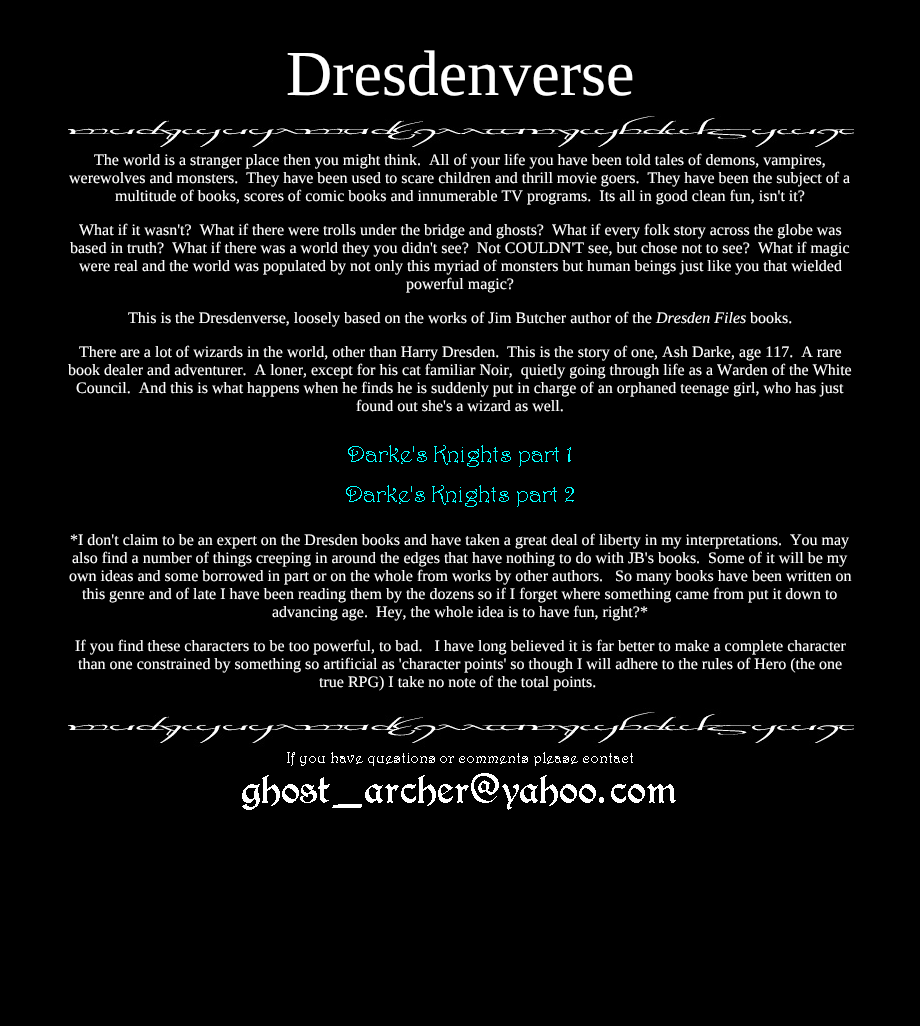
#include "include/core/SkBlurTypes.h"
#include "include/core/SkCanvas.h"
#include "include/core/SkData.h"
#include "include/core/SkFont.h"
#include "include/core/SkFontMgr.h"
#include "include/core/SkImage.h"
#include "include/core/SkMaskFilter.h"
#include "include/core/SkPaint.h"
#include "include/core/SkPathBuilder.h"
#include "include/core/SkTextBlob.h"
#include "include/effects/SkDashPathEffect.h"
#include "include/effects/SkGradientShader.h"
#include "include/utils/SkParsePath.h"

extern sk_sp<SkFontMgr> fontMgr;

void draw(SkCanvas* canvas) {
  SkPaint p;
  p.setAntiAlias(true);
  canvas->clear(SK_ColorBLACK);
  canvas->drawImageRect(SkImages::DeferredFromEncodedData(SkData::MakeFromFileName("images/1.png")), SkRect::MakeLTRB(68, 112, 856, 151), SkSamplingOptions());
  canvas->drawImageRect(SkImages::DeferredFromEncodedData(SkData::MakeFromFileName("images/2.png")), SkRect::MakeLTRB(348, 445, 571, 467), SkSamplingOptions());
  canvas->drawImageRect(SkImages::DeferredFromEncodedData(SkData::MakeFromFileName("images/3.png")), SkRect::MakeLTRB(346, 485, 574, 507), SkSamplingOptions());
  canvas->drawImageRect(SkImages::DeferredFromEncodedData(SkData::MakeFromFileName("images/1.png")), SkRect::MakeLTRB(68, 708, 856, 747), SkSamplingOptions());
  canvas->drawImageRect(SkImages::DeferredFromEncodedData(SkData::MakeFromFileName("images/4.png")), SkRect::MakeLTRB(287, 752, 633, 766), SkSamplingOptions());
  canvas->drawImageRect(SkImages::DeferredFromEncodedData(SkData::MakeFromFileName("images/5.png")), SkRect::MakeLTRB(242, 773, 676, 810), SkSamplingOptions());
  SkFont font1(fontMgr->matchFamilyStyle("Liberation Serif", SkFontStyle::Normal()), 64);
  font1.setSubpixel(true);
  p.setColor(SK_ColorWHITE);
  canvas->drawString("Dresdenverse", 286, 95, font1, p);
  SkFont font2(fontMgr->matchFamilyStyle("Liberation Serif", SkFontStyle::Normal()), 16);
  font2.setSubpixel(true);
  canvas->drawString("The world is a stranger place then you might think.  All of your life you have been told tales of demons, vampires,", 94, 165, font2, p);
  canvas->drawString("werewolves and monsters.  They have been used to scare children and thrill movie goers.  They have been the subject of a", 69, 183, font2, p);
  canvas->drawString("multitude of books, scores of comic books and innumerable TV programs.  Its all in good clean fun, isn't it?", 115, 201, font2, p);
  canvas->drawString("What if it wasn't?  What if there were trolls under the bridge and ghosts?  What if every folk story across the globe was", 79, 235, font2, p);
  canvas->drawString("based in truth?  What if there was a world they you didn't see?  Not COULDN'T see, but chose not to see?", 70, 253, font2, p);
  canvas->drawString("What if magic", 758, 253, font2, p);
  canvas->drawString("were real and the world was populated by not only this myriad of monsters but human beings just like you that wielded", 79, 271, font2, p);
  canvas->drawString("powerful magic?", 406, 289, font2, p);
  canvas->drawString("This is the Dresdenverse, loosely based on the works of Jim Butcher author of the", 128, 323, font2, p);
  SkFont font3(fontMgr->matchFamilyStyle("Liberation Serif", SkFontStyle::Italic()), 16);
  font3.setSubpixel(true);
  canvas->drawString("Dresden Files", 656, 323, font3, p);
  canvas->drawString("books.", 750, 323, font2, p);
  canvas->drawString("There are a lot of wizards in the world, other than Harry Dresden.", 79, 357, font2, p);
  canvas->drawString("This is the story of one, Ash Darke, age 117.  A rare", 507, 357, font2, p);
  canvas->drawString("book dealer and adventurer.  A loner, except for his cat familiar Noir,  quietly going through life as a Warden of the White", 68, 375, font2, p);
  canvas->drawString("Council.  And this is what happens when he finds he is suddenly put in charge of an orphaned teenage girl, who has just", 76, 393, font2, p);
  canvas->drawString("found out she's a wizard as well.", 356, 411, font2, p);
  canvas->drawString("*I don't claim to be an expert on the Dresden books and have taken a great deal of liberty in my interpretations.  You may", 70, 545, font2, p);
  canvas->drawString("also find a number of things creeping in around the edges that have nothing to do with JB's books.  Some of it will be my", 72, 563, font2, p);
  canvas->drawString("own ideas and some borrowed in part or on the whole from works by other authors.", 69, 581, font2, p);
  canvas->drawString("So many books have been written on", 615, 581, font2, p);
  canvas->drawString("this genre and of late I have been reading them by the dozens so if I forget where something came from put it down to", 82, 599, font2, p);
  canvas->drawString("advancing age.  Hey, the whole idea is to have fun, right?*", 272, 617, font2, p);
  canvas->drawString("If you find these characters to be too powerful, to bad.   I have long believed it is far better to make a complete character", 75, 651, font2, p);
  canvas->drawString("than one constrained by something so artificial as 'character points' so though I will adhere to the rules of Hero (the one", 78, 669, font2, p);
  canvas->drawString("true RPG) I take no note of the total points.", 319, 687, font2, p);
}
